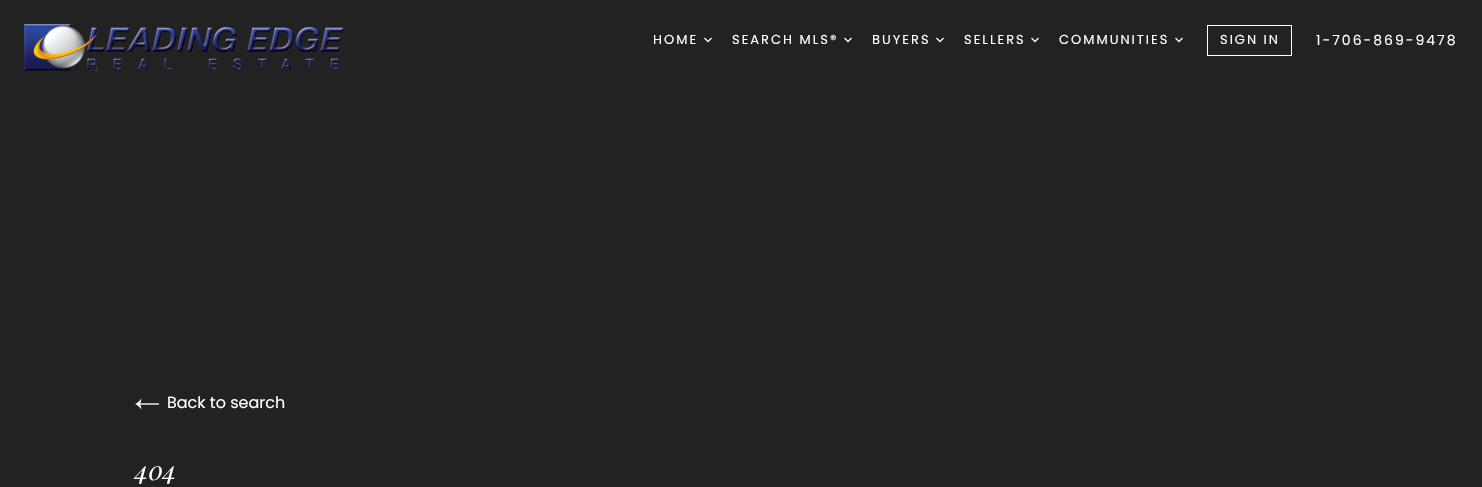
#include "include/core/SkBlurTypes.h"
#include "include/core/SkCanvas.h"
#include "include/core/SkData.h"
#include "include/core/SkFont.h"
#include "include/core/SkFontMgr.h"
#include "include/core/SkImage.h"
#include "include/core/SkMaskFilter.h"
#include "include/core/SkPaint.h"
#include "include/core/SkPathBuilder.h"
#include "include/core/SkTextBlob.h"
#include "include/effects/SkDashPathEffect.h"
#include "include/effects/SkGradientShader.h"
#include "include/utils/SkParsePath.h"

extern sk_sp<SkFontMgr> fontMgr;

void draw(SkCanvas* canvas) {
  SkPaint p;
  p.setAntiAlias(true);
  auto spacedText = [&](const char* s, float x, float y, const SkFont& font, const SkPaint& ink, float letter, float word) {
    std::vector<SkGlyphID> glyphs(font.countText(s, strlen(s), SkTextEncoding::kUTF8));
    std::vector<float> xs(glyphs.size());
    font.textToGlyphs(s, strlen(s), SkTextEncoding::kUTF8, glyphs);
    font.getXPos(glyphs, xs, x);
    float extra = 0;
    for (size_t i = 0; i < glyphs.size(); i++) {
      xs[i] += extra;
      extra += letter + word * (glyphs[i] == font.unicharToGlyph(' '));
    }
    canvas->drawTextBlob(SkTextBlob::MakeFromPosHGlyphs(glyphs, xs, y, font), 0, 0, ink);
  };
  canvas->clear(SkColorSetRGB(34, 34, 34));
  canvas->drawImageRect(SkImages::DeferredFromEncodedData(SkData::MakeFromFileName("images/1.png")), SkRect::MakeLTRB(24, 24, 344, 71), SkSamplingOptions());
  canvas->drawImageRect(SkImages::DeferredFromEncodedData(SkData::MakeFromFileName("images/2.png")), SkRect::MakeLTRB(704, 37, 712, 43), SkSamplingOptions());
  canvas->drawImageRect(SkImages::DeferredFromEncodedData(SkData::MakeFromFileName("images/2.png")), SkRect::MakeLTRB(844, 37, 852, 43), SkSamplingOptions());
  canvas->drawImageRect(SkImages::DeferredFromEncodedData(SkData::MakeFromFileName("images/2.png")), SkRect::MakeLTRB(936, 37, 944, 43), SkSamplingOptions());
  canvas->drawImageRect(SkImages::DeferredFromEncodedData(SkData::MakeFromFileName("images/2.png")), SkRect::MakeLTRB(1031, 37, 1039, 43), SkSamplingOptions());
  canvas->drawImageRect(SkImages::DeferredFromEncodedData(SkData::MakeFromFileName("images/2.png")), SkRect::MakeLTRB(1175, 37, 1183, 43), SkSamplingOptions());
  p.setStyle(SkPaint::kStroke_Style);
  p.setStrokeWidth(1);
  p.setColor(SK_ColorWHITE);
  canvas->drawRect(SkRect::MakeLTRB(1207.5f, 25.5f, 1291.5f, 55.5f), p);
  canvas->drawImageRect(SkImages::DeferredFromEncodedData(SkData::MakeFromFileName("images/3.png")), SkRect::MakeLTRB(135, 398, 159, 410), SkSamplingOptions());
  SkFont font1(fontMgr->matchFamilyStyle("Poppins", SkFontStyle::Normal()), 13);
  font1.setSubpixel(true);
  p.setStyle(SkPaint::kFill_Style);
  spacedText("HOME", 653, 44, font1, p, 2, 0);
  spacedText("SEARCH MLS®", 732, 44, font1, p, 2, 0);
  spacedText("BUYERS", 872, 44, font1, p, 2, 0);
  spacedText("SELLERS", 964, 44, font1, p, 2, 0);
  spacedText("COMMUNITIES", 1059, 44, font1, p, 2, 0);
  spacedText("SIGN IN", 1220, 44, font1, p, 2, 0);
  SkFont font2(fontMgr->matchFamilyStyle("Poppins", SkFontStyle::Normal()), 14);
  font2.setSubpixel(true);
  spacedText("1-706-869-9478", 1316, 45, font2, p, 2, 0);
  SkFont font3(fontMgr->matchFamilyStyle("Poppins", SkFontStyle::Normal()), 16);
  font3.setSubpixel(true);
  canvas->drawString("Back to search", 167, 408, font3, p);
  SkFont font4(fontMgr->matchFamilyStyle("Playfair Display", SkFontStyle::Italic()), 26);
  font4.setSubpixel(true);
  canvas->drawString("404", 135, 480, font4, p);
}
